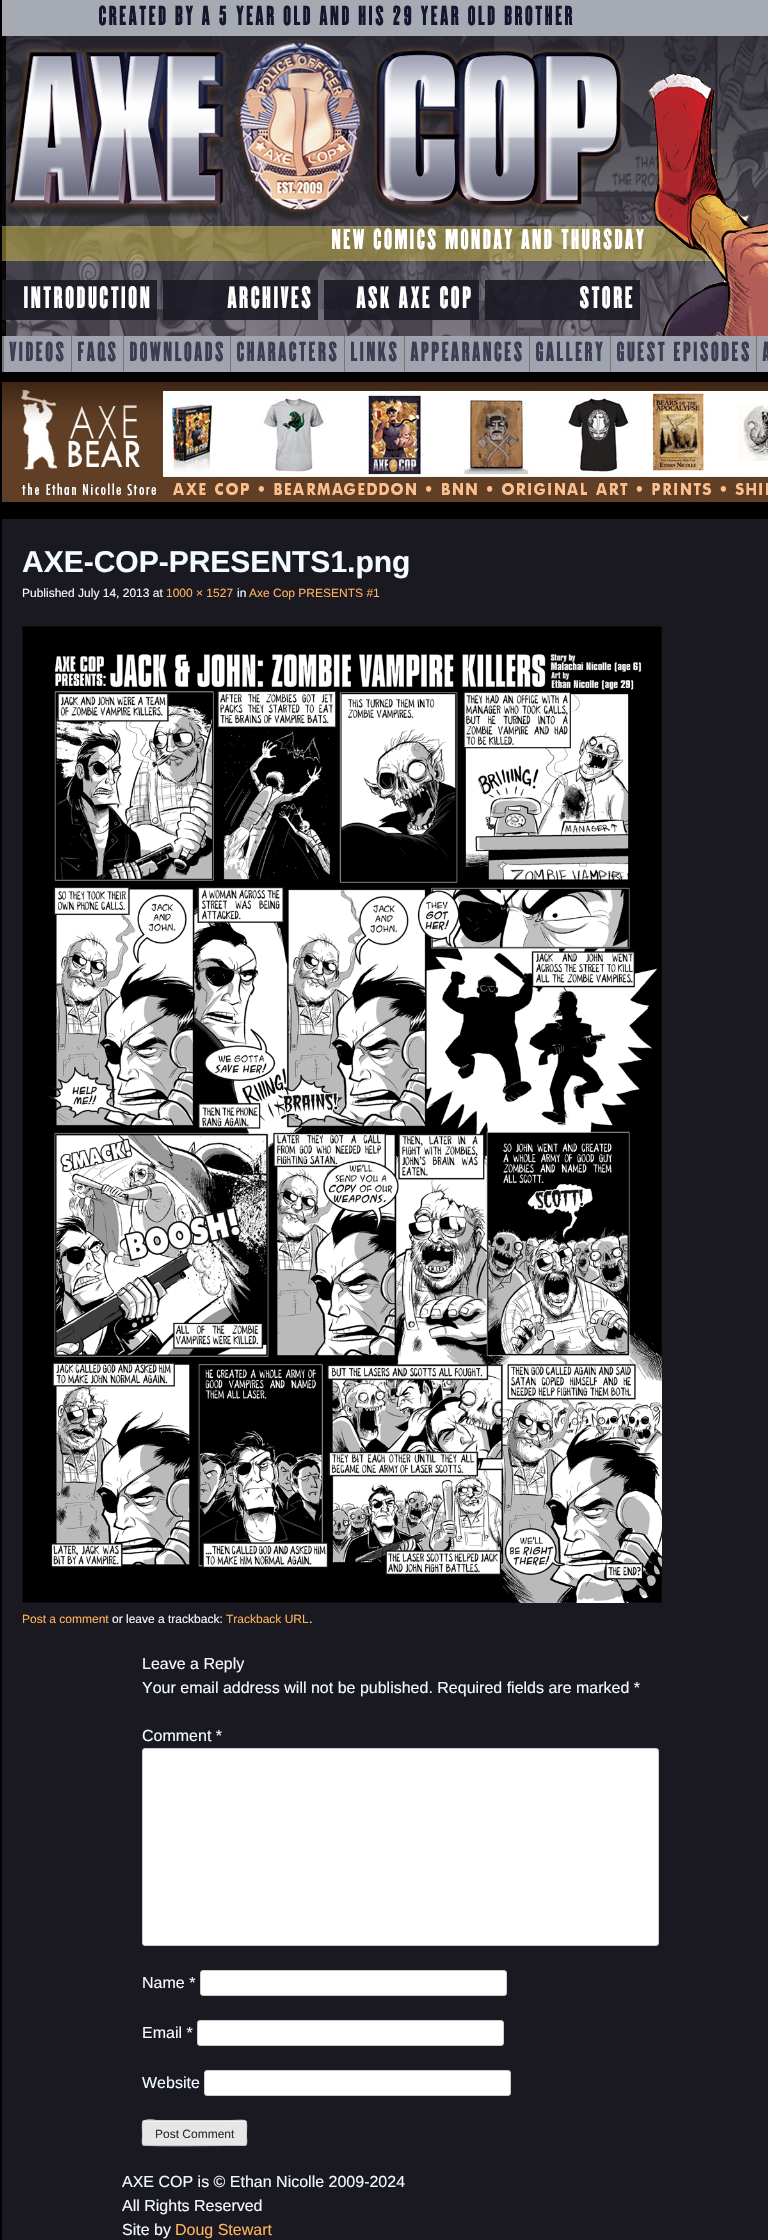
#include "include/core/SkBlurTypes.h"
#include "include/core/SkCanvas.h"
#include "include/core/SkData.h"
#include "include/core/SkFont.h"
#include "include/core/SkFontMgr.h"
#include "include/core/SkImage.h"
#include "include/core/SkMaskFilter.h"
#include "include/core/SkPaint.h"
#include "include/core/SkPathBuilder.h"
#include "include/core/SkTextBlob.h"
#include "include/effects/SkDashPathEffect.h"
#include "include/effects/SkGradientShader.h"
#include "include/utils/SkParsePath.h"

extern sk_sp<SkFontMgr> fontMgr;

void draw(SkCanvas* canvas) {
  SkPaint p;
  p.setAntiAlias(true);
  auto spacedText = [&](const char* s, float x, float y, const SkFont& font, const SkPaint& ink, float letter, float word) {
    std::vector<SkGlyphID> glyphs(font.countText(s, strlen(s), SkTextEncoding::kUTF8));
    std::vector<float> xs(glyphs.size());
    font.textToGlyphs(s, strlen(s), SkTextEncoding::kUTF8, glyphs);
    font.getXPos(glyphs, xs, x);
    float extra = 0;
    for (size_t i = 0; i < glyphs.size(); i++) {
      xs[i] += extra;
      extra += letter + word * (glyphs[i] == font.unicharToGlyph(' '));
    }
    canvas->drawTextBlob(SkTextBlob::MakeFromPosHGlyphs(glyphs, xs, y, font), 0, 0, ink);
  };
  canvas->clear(SkColorSetRGB(26, 25, 33));
  p.setColor(SK_ColorBLACK);
  canvas->drawRect(SkRect::MakeLTRB(0, 0, 2, 2240), p);
  canvas->drawImageRect(SkImages::DeferredFromEncodedData(SkData::MakeFromFileName("images/1.png")), SkRect::MakeLTRB(2, 36, 768, 336), SkSamplingOptions());
  p.setColor(SkColorSetRGB(166, 170, 179));
  canvas->drawRect(SkRect::MakeLTRB(2, 0, 768, 36), p);
  canvas->drawImageRect(SkImages::DeferredFromEncodedData(SkData::MakeFromFileName("images/2.png")), SkRect::MakeLTRB(5, 37, 625, 222), SkSamplingOptions());
  canvas->drawImageRect(SkImages::DeferredFromEncodedData(SkData::MakeFromFileName("images/4.png")), SkRect::MakeLTRB(2, 226, 759, 261), SkSamplingOptions());
  canvas->drawImageRect(SkImages::DeferredFromEncodedData(SkData::MakeFromFileName("images/3.png")), SkRect::MakeLTRB(647, 70, 768, 336), SkSamplingOptions());
  p.setColor(SkColorSetARGB(230, 27, 26, 35));
  canvas->drawRect(SkRect::MakeLTRB(2, 280, 157, 320), p);
  canvas->drawRect(SkRect::MakeLTRB(163, 280, 318, 320), p);
  canvas->drawRect(SkRect::MakeLTRB(324, 280, 479, 320), p);
  canvas->drawRect(SkRect::MakeLTRB(485, 280, 640, 320), p);
  p.setColor(SkColorSetRGB(159, 164, 174));
  canvas->drawRect(SkRect::MakeLTRB(4, 336, 768, 372), p);
  p.setColor(SkColorSetRGB(119, 119, 119));
  canvas->drawRect(SkRect::MakeLTRB(2, 336, 4, 372), p);
  canvas->drawRect(SkRect::MakeLTRB(71, 336, 72, 372), p);
  canvas->drawRect(SkRect::MakeLTRB(123, 336, 124, 372), p);
  canvas->drawRect(SkRect::MakeLTRB(230, 336, 231, 372), p);
  canvas->drawRect(SkRect::MakeLTRB(344, 336, 345, 372), p);
  canvas->drawRect(SkRect::MakeLTRB(404, 336, 405, 372), p);
  canvas->drawRect(SkRect::MakeLTRB(529, 336, 530, 372), p);
  canvas->drawRect(SkRect::MakeLTRB(610, 336, 611, 372), p);
  canvas->drawRect(SkRect::MakeLTRB(756, 336, 757, 372), p);
  p.setColor(SK_ColorBLACK);
  canvas->drawRect(SkRect::MakeLTRB(2, 372, 768, 519), p);
  canvas->drawImageRect(SkImages::DeferredFromEncodedData(SkData::MakeFromFileName("images/5.png")), SkRect::MakeLTRB(2, 382, 768, 502), SkSamplingOptions());
  canvas->drawImageRect(SkImages::DeferredFromEncodedData(SkData::MakeFromFileName("images/6.png")), SkRect::MakeLTRB(22, 626, 662, 1603), SkSamplingOptions());
  p.setColor(SK_ColorWHITE);
  canvas->drawRoundRect(SkRect::MakeLTRB(142.5f, 1748.5f, 658.5f, 1945.5f), 2.5f, 2.5f, p);
  p.setStyle(SkPaint::kStroke_Style);
  p.setStrokeWidth(1);
  p.setColor(SkColorSetRGB(204, 204, 204));
  canvas->drawRoundRect(SkRect::MakeLTRB(142.5f, 1748.5f, 658.5f, 1945.5f), 2.5f, 2.5f, p);
  p.setStyle(SkPaint::kFill_Style);
  p.setColor(SK_ColorWHITE);
  canvas->drawRoundRect(SkRect::MakeLTRB(200.5f, 1970.5f, 506.5f, 1995.5f), 2.5f, 2.5f, p);
  p.setStyle(SkPaint::kStroke_Style);
  p.setColor(SkColorSetRGB(204, 204, 204));
  canvas->drawRoundRect(SkRect::MakeLTRB(200.5f, 1970.5f, 506.5f, 1995.5f), 2.5f, 2.5f, p);
  p.setStyle(SkPaint::kFill_Style);
  p.setColor(SK_ColorWHITE);
  canvas->drawRoundRect(SkRect::MakeLTRB(197.5f, 2020.5f, 503.5f, 2045.5f), 2.5f, 2.5f, p);
  p.setStyle(SkPaint::kStroke_Style);
  p.setColor(SkColorSetRGB(204, 204, 204));
  canvas->drawRoundRect(SkRect::MakeLTRB(197.5f, 2020.5f, 503.5f, 2045.5f), 2.5f, 2.5f, p);
  p.setStyle(SkPaint::kFill_Style);
  p.setColor(SK_ColorWHITE);
  canvas->drawRoundRect(SkRect::MakeLTRB(204.5f, 2070.5f, 510.5f, 2095.5f), 2.5f, 2.5f, p);
  p.setStyle(SkPaint::kStroke_Style);
  p.setColor(SkColorSetRGB(204, 204, 204));
  canvas->drawRoundRect(SkRect::MakeLTRB(204.5f, 2070.5f, 510.5f, 2095.5f), 2.5f, 2.5f, p);
  p.setStyle(SkPaint::kFill_Style);
  p.setColor(SkColorSetRGB(230, 230, 230));
  canvas->drawRoundRect(SkRect::MakeLTRB(142, 2120, 247, 2146), 3, 3, p);
  p.setColor(SkColorSetRGB(243, 243, 243));
  canvas->drawPath(SkPathBuilder().moveTo(145, 2122).lineTo(244, 2122).cubicTo(245, 2122, 246, 2123, 246, 2124).cubicTo(246, 2123, 246, 2121, 244, 2121).lineTo(162, 2121).cubicTo(160, 2121, 143, 2116, 143, 2124).cubicTo(143, 2123, 144, 2122, 145, 2122).close().detach(), p);
  p.setStyle(SkPaint::kStroke_Style);
  p.setColor(SkColorSetRGB(187, 187, 187));
  canvas->drawPath(SkPathBuilder().moveTo(246, 2145).lineTo(244, 2145.5f).lineTo(227.5f, 2145.5f).cubicTo(219, 2145.5f, 145.5f, 2146.5f, 143.5f, 2145).lineTo(143, 2145).detach(), p);
  p.setColor(SkColorSetRGB(204, 204, 204));
  canvas->drawPath(SkPathBuilder().moveTo(143, 2145).cubicTo(141.5f, 2143, 142.5f, 2138.5f, 142.5f, 2136.5f).cubicTo(142.5f, 2116.5f, 139, 2120.5f, 161.5f, 2120.5f).lineTo(227.5f, 2120.5f).cubicTo(250, 2120.5f, 246.5f, 2116.5f, 246.5f, 2136.5f).cubicTo(246.5f, 2138.5f, 247.5f, 2143, 246, 2145).detach(), p);
  SkFont font1(fontMgr->matchFamilyStyle("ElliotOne", SkFontStyle(100, SkFontStyle::kNormal_Width, SkFontStyle::kUpright_Slant)), 24);
  font1.setSubpixel(true);
  p.setStyle(SkPaint::kFill_Style);
  p.setColor(SkColorSetRGB(22, 21, 46));
  spacedText("CREATED BY A 5 YEAR OLD AND HIS 29 YEAR OLD BROTHER", 98, 25, font1, p, 2, 0);
  SkFont font2(fontMgr->matchFamilyStyle("ElliotOne", SkFontStyle(100, SkFontStyle::kNormal_Width, SkFontStyle::kUpright_Slant)), 25);
  font2.setSubpixel(true);
  p.setColor(SK_ColorWHITE);
  spacedText("NEW COMICS MONDAY AND THURSDAY", 331, 249, font2, p, 2, 0);
  SkFont font3(fontMgr->matchFamilyStyle("ElliotOne", SkFontStyle(100, SkFontStyle::kNormal_Width, SkFontStyle::kUpright_Slant)), 27);
  font3.setSubpixel(true);
  spacedText("INTRODUCTION", 23, 308, font3, p, 2, 0);
  spacedText("ARCHIVES", 227, 308, font3, p, 2, 0);
  spacedText("ASK AXE COP", 356, 308, font3, p, 2, 0);
  spacedText("STORE", 579, 308, font3, p, 2, 0);
  p.setColor(SkColorSetRGB(61, 60, 82));
  spacedText("VIDEOS", 9, 361, font1, p, 2, 0);
  spacedText("FAQS", 77, 361, font1, p, 2, 0);
  spacedText("DOWNLOADS", 129, 361, font1, p, 2, 0);
  spacedText("CHARACTERS", 236, 361, font1, p, 2, 0);
  spacedText("LINKS", 350, 361, font1, p, 2, 0);
  spacedText("APPEARANCES", 410, 361, font1, p, 2, 0);
  spacedText("GALLERY", 535, 361, font1, p, 2, 0);
  spacedText("GUEST EPISODES", 616, 361, font1, p, 2, 0);
  spacedText("A", 762, 361, font1, p, 2, 0);
  SkFont font4(fontMgr->matchFamilyStyle("Liberation Sans", SkFontStyle::Bold()), 30);
  font4.setSubpixel(true);
  p.setColor(SkColorSetRGB(242, 251, 253));
  canvas->drawString("AXE-COP-PRESENTS1.png", 22, 572, font4, p);
  SkFont font5(fontMgr->matchFamilyStyle("Liberation Sans", SkFontStyle::Normal()), 12);
  font5.setSubpixel(true);
  canvas->drawString("Published July 14, 2013 at", 22, 597, font5, p);
  p.setColor(SkColorSetRGB(255, 179, 92));
  canvas->drawString("1000 × 1527", 166, 597, font5, p);
  p.setColor(SkColorSetRGB(242, 251, 253));
  canvas->drawString("in", 237, 597, font5, p);
  p.setColor(SkColorSetRGB(255, 179, 92));
  canvas->drawString("Axe Cop PRESENTS #1", 249, 597, font5, p);
  canvas->drawString("Post a comment", 22, 1623, font5, p);
  p.setColor(SkColorSetRGB(242, 251, 253));
  canvas->drawString("or leave a trackback:", 112, 1623, font5, p);
  p.setColor(SkColorSetRGB(255, 179, 92));
  canvas->drawString("Trackback URL", 226, 1623, font5, p);
  p.setColor(SkColorSetRGB(242, 251, 253));
  canvas->drawString(".", 309, 1623, font5, p);
  SkFont font6(fontMgr->matchFamilyStyle("Liberation Sans", SkFontStyle::Normal()), 16);
  font6.setSubpixel(true);
  canvas->drawString("Leave a Reply", 142, 1669, font6, p);
  canvas->drawString("Your email address will not be published. Required fields are marked *", 142, 1693, font6, p);
  canvas->drawString("Comment *", 142, 1741, font6, p);
  canvas->drawString("Name *", 142, 1988, font6, p);
  canvas->drawString("Email *", 142, 2038, font6, p);
  canvas->drawString("Website", 142, 2088, font6, p);
  p.setColor(SkColorSetRGB(46, 46, 46));
  canvas->drawString("Post Comment", 155, 2138, font5, p);
  p.setColor(SkColorSetRGB(242, 251, 253));
  canvas->drawString("AXE COP is © Ethan Nicolle 2009-2024", 122, 2187, font6, p);
  canvas->drawString("All Rights Reserved", 122, 2211, font6, p);
  canvas->drawString("Site by", 122, 2235, font6, p);
  p.setColor(SkColorSetRGB(255, 179, 92));
  canvas->drawString("Doug Stewart", 175, 2235, font6, p);
}
